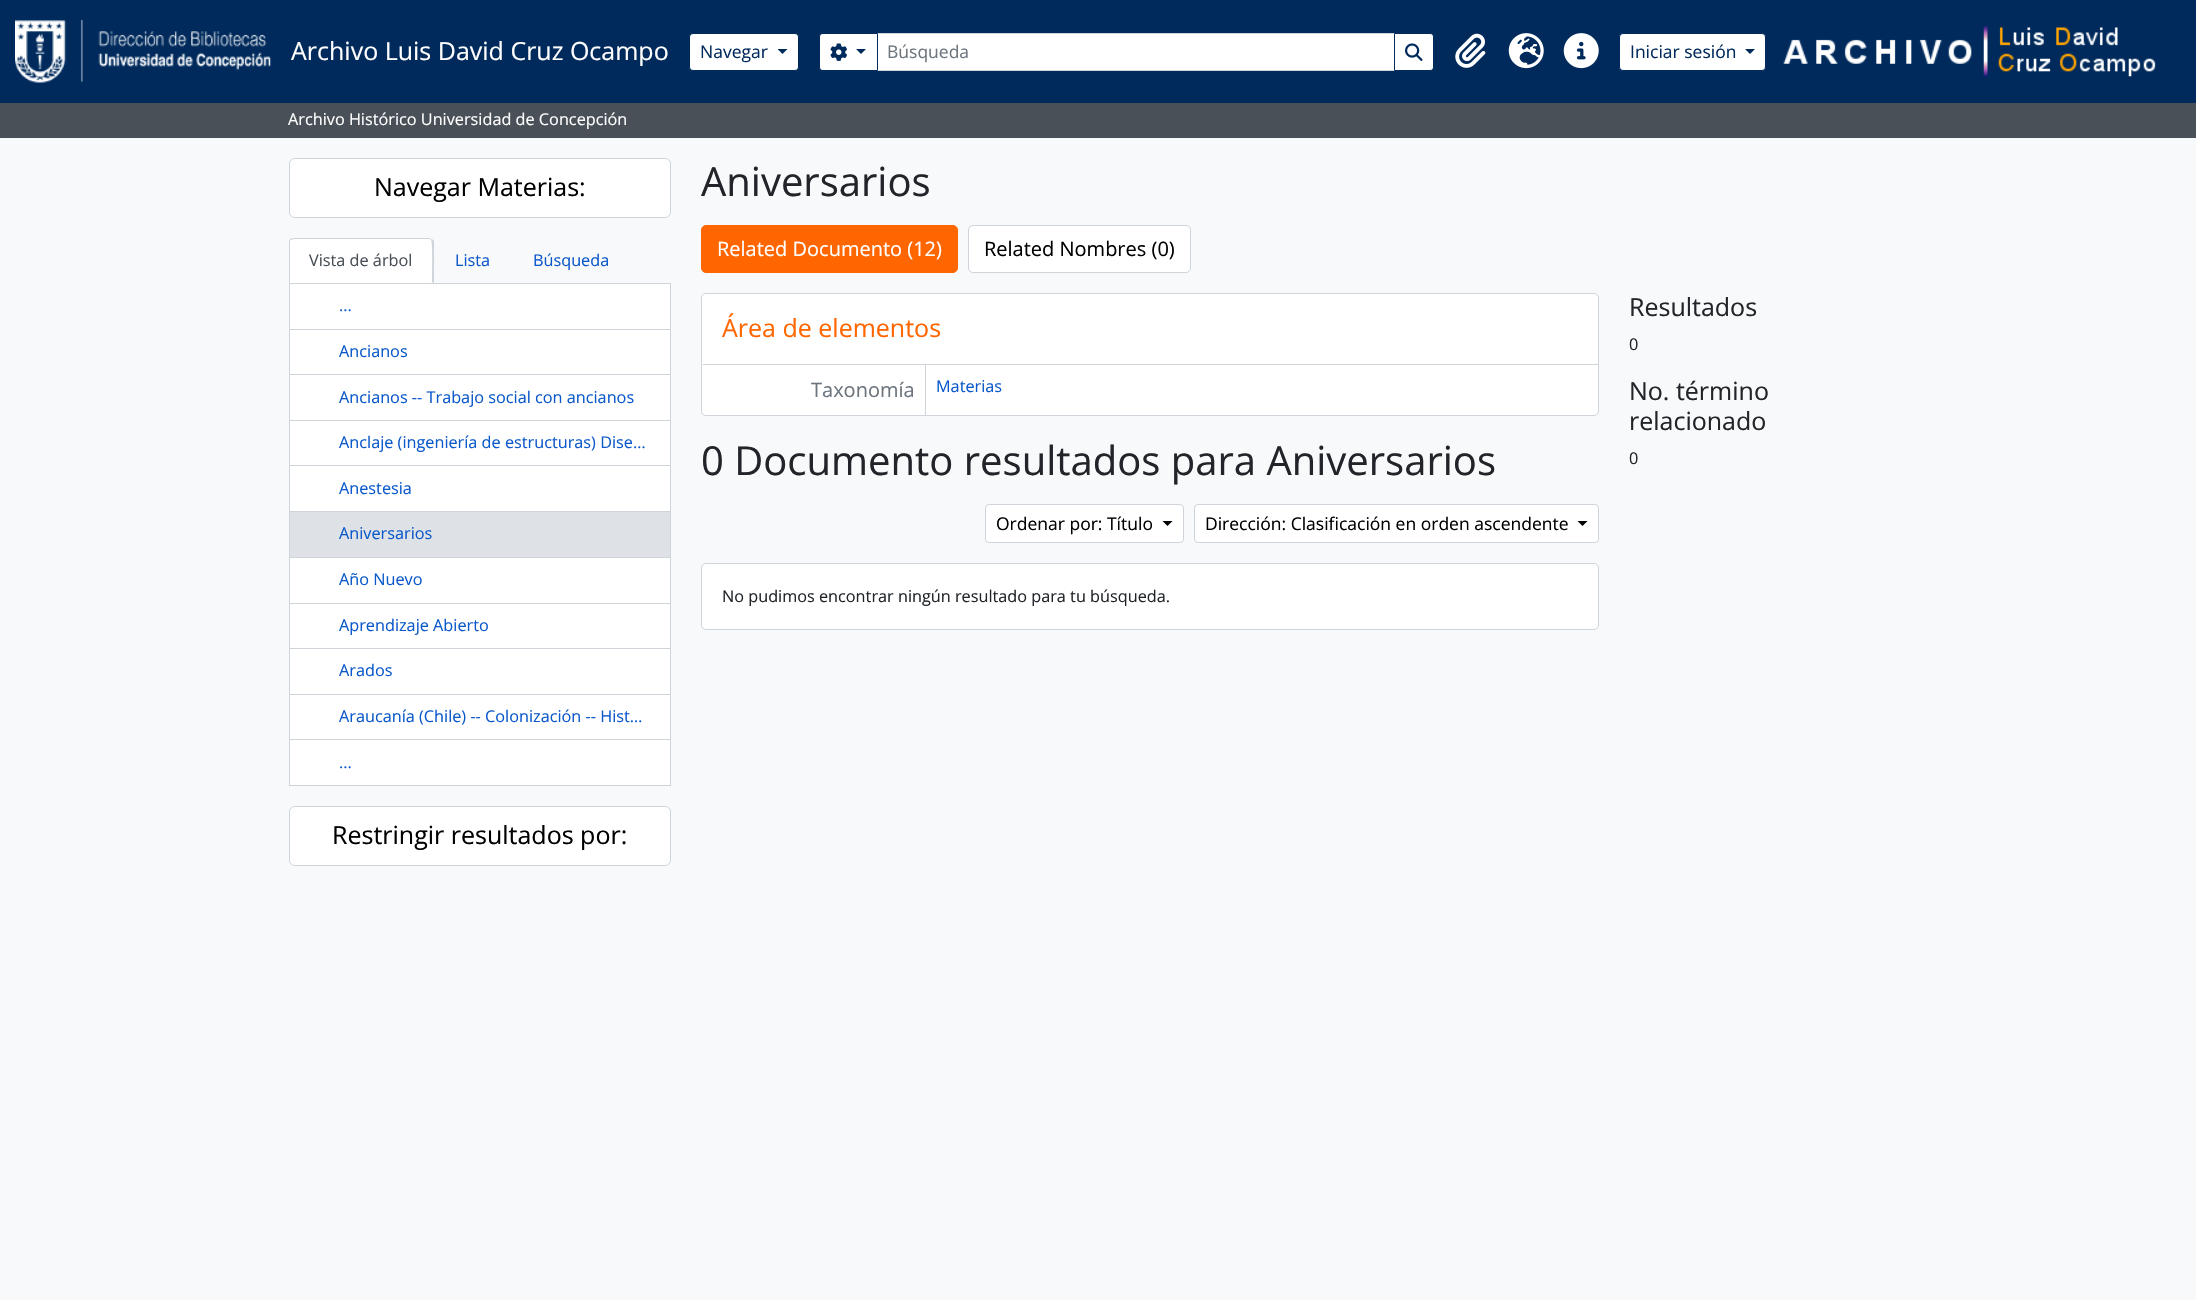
#include "include/core/SkBlurTypes.h"
#include "include/core/SkCanvas.h"
#include "include/core/SkData.h"
#include "include/core/SkFont.h"
#include "include/core/SkFontMgr.h"
#include "include/core/SkImage.h"
#include "include/core/SkMaskFilter.h"
#include "include/core/SkPaint.h"
#include "include/core/SkPathBuilder.h"
#include "include/core/SkTextBlob.h"
#include "include/effects/SkDashPathEffect.h"
#include "include/effects/SkGradientShader.h"
#include "include/utils/SkParsePath.h"

extern sk_sp<SkFontMgr> fontMgr;

void draw(SkCanvas* canvas) {
  SkPaint p;
  p.setAntiAlias(true);
  canvas->clear(SkColorSetRGB(248, 249, 250));
  p.setColor(SkColorSetRGB(0, 42, 92));
  canvas->drawRect(SkRect::MakeLTRB(0, 0, 2196, 103), p);
  canvas->drawImageRect(SkImages::DeferredFromEncodedData(SkData::MakeFromFileName("images/1.png")), SkRect::MakeLTRB(15, 20, 272, 83), SkSamplingOptions());
  p.setColor(SK_ColorWHITE);
  canvas->drawRoundRect(SkRect::MakeLTRB(689.5f, 33.5f, 798.5f, 70.5f), 3.5f, 3.5f, p);
  p.setStyle(SkPaint::kStroke_Style);
  p.setStrokeWidth(1);
  p.setColor(SkColorSetRGB(0, 42, 92));
  canvas->drawRoundRect(SkRect::MakeLTRB(689.5f, 33.5f, 798.5f, 70.5f), 3.5f, 3.5f, p);
  p.setStyle(SkPaint::kFill_Style);
  canvas->drawPath(SkPathBuilder().moveTo(777.5f, 49).lineTo(787.5f, 49).lineTo(782.5f, 54).close().detach(), p);
  p.setColor(SK_ColorWHITE);
  canvas->drawRect(SkRect::MakeLTRB(878, 34, 1394, 70), p);
  p.setStyle(SkPaint::kStroke_Style);
  p.setColor(SkColorSetRGB(206, 212, 218));
  canvas->drawRect(SkRect::MakeLTRB(876.5f, 33.5f, 1394.5f, 70.5f), p);
  p.setStyle(SkPaint::kFill_Style);
  p.setColor(SK_ColorWHITE);
  canvas->drawPath(SkPathBuilder().moveTo(823, 33.5f).lineTo(877.5f, 33.5f).lineTo(877.5f, 70.5f).lineTo(823, 70.5f).cubicTo(821, 70.5f, 819.5f, 69, 819.5f, 67).lineTo(819.5f, 37).cubicTo(819.5f, 35, 821, 33.5f, 823, 33.5f).close().detach(), p);
  p.setStyle(SkPaint::kStroke_Style);
  p.setColor(SkColorSetRGB(0, 42, 92));
  canvas->drawPath(SkPathBuilder().moveTo(823, 33.5f).lineTo(877.5f, 33.5f).lineTo(877.5f, 70.5f).lineTo(823, 70.5f).cubicTo(821, 70.5f, 819.5f, 69, 819.5f, 67).lineTo(819.5f, 37).cubicTo(819.5f, 35, 821, 33.5f, 823, 33.5f).close().detach(), p);
  canvas->drawImageRect(SkImages::DeferredFromEncodedData(SkData::MakeFromFileName("images/2.png")), SkRect::MakeLTRB(830, 43, 847, 61), SkSamplingOptions());
  p.setStyle(SkPaint::kFill_Style);
  canvas->drawPath(SkPathBuilder().moveTo(856, 49).lineTo(866, 49).lineTo(861, 54).close().detach(), p);
  p.setColor(SK_ColorWHITE);
  canvas->drawPath(SkPathBuilder().moveTo(1394.5f, 33.5f).lineTo(1430, 33.5f).cubicTo(1432, 33.5f, 1433.5f, 35, 1433.5f, 37).lineTo(1433.5f, 67).cubicTo(1433.5f, 69, 1432, 70.5f, 1430, 70.5f).lineTo(1394.5f, 70.5f).close().detach(), p);
  p.setStyle(SkPaint::kStroke_Style);
  p.setColor(SkColorSetRGB(0, 42, 92));
  canvas->drawPath(SkPathBuilder().moveTo(1394.5f, 33.5f).lineTo(1430, 33.5f).cubicTo(1432, 33.5f, 1433.5f, 35, 1433.5f, 37).lineTo(1433.5f, 67).cubicTo(1433.5f, 69, 1432, 70.5f, 1430, 70.5f).lineTo(1394.5f, 70.5f).close().detach(), p);
  canvas->drawImageRect(SkImages::DeferredFromEncodedData(SkData::MakeFromFileName("images/3.png")), SkRect::MakeLTRB(1405, 43, 1423, 61), SkSamplingOptions());
  canvas->drawImageRect(SkImages::DeferredFromEncodedData(SkData::MakeFromFileName("images/4.png")), SkRect::MakeLTRB(1455, 33, 1486, 68), SkSamplingOptions());
  canvas->drawImageRect(SkImages::DeferredFromEncodedData(SkData::MakeFromFileName("images/5.png")), SkRect::MakeLTRB(1508, 33, 1544, 69), SkSamplingOptions());
  canvas->drawImageRect(SkImages::DeferredFromEncodedData(SkData::MakeFromFileName("images/6.png")), SkRect::MakeLTRB(1563, 33, 1599, 69), SkSamplingOptions());
  p.setStyle(SkPaint::kFill_Style);
  p.setColor(SK_ColorWHITE);
  canvas->drawRoundRect(SkRect::MakeLTRB(1619.5f, 33.5f, 1765.5f, 70.5f), 3.5f, 3.5f, p);
  p.setStyle(SkPaint::kStroke_Style);
  p.setColor(SkColorSetRGB(0, 42, 92));
  canvas->drawRoundRect(SkRect::MakeLTRB(1619.5f, 33.5f, 1765.5f, 70.5f), 3.5f, 3.5f, p);
  p.setStyle(SkPaint::kFill_Style);
  canvas->drawPath(SkPathBuilder().moveTo(1745, 49).lineTo(1755, 49).lineTo(1750, 54).close().detach(), p);
  canvas->drawImageRect(SkImages::DeferredFromEncodedData(SkData::MakeFromFileName("images/7.png")), SkRect::MakeLTRB(1783, 26, 2156, 77), SkSamplingOptions());
  p.setColor(SkColorSetRGB(73, 80, 87));
  canvas->drawRect(SkRect::MakeLTRB(0, 103, 2196, 138), p);
  p.setColor(SK_ColorWHITE);
  canvas->drawRoundRect(SkRect::MakeLTRB(289.5f, 158.5f, 670.5f, 217.5f), 5.5f, 5.5f, p);
  p.setStyle(SkPaint::kStroke_Style);
  p.setColor(SkColorSetRGB(206, 212, 218));
  canvas->drawRoundRect(SkRect::MakeLTRB(289.5f, 158.5f, 670.5f, 217.5f), 5.5f, 5.5f, p);
  p.setStyle(SkPaint::kFill_Style);
  p.setColor(SK_ColorWHITE);
  canvas->drawPath(SkPathBuilder().moveTo(294, 238).lineTo(429, 238).cubicTo(432, 238, 434, 240, 434, 243).lineTo(434, 284).lineTo(289, 284).lineTo(289, 243).cubicTo(289, 240, 291, 238, 294, 238).close().detach(), p);
  p.setColor(SkColorSetRGB(206, 212, 218));
  canvas->drawPath(SkPathBuilder().moveTo(294, 238).lineTo(290, 239).lineTo(291, 240).lineTo(294, 239).lineTo(429, 239).cubicTo(430, 239, 431, 239, 431, 240).lineTo(432, 239).lineTo(429, 238).close().detach(), p);
  canvas->drawPath(SkPathBuilder().moveTo(432, 239).lineTo(434, 241).lineTo(434, 284).lineTo(432, 282).cubicTo(432, 277, 433, 242, 431, 240).close().detach(), p);
  p.setColor(SK_ColorWHITE);
  canvas->drawPath(SkPathBuilder().moveTo(434, 284).lineTo(289, 284).lineTo(290, 282).lineTo(432, 282).close().detach(), p);
  p.setColor(SkColorSetRGB(206, 212, 218));
  canvas->drawPath(SkPathBuilder().moveTo(290, 239).lineTo(289, 241).lineTo(289, 284).lineTo(290, 282).lineTo(290, 241).lineTo(291, 240).close().detach(), p);
  canvas->drawRect(SkRect::MakeLTRB(289, 283, 671, 284), p);
  p.setColor(SK_ColorWHITE);
  canvas->drawRect(SkRect::MakeLTRB(290, 284, 670, 329), p);
  p.setColor(SkColorSetRGB(206, 212, 218));
  canvas->drawRect(SkRect::MakeLTRB(670, 284, 671, 513), p);
  canvas->drawRect(SkRect::MakeLTRB(289, 329, 671, 330), p);
  canvas->drawRect(SkRect::MakeLTRB(289, 284, 290, 330), p);
  p.setColor(SK_ColorWHITE);
  canvas->drawRect(SkRect::MakeLTRB(290, 330, 670, 374), p);
  p.setColor(SkColorSetRGB(206, 212, 218));
  canvas->drawRect(SkRect::MakeLTRB(289, 374, 671, 375), p);
  canvas->drawRect(SkRect::MakeLTRB(289, 330, 290, 375), p);
  p.setColor(SK_ColorWHITE);
  canvas->drawRect(SkRect::MakeLTRB(290, 375, 670, 420), p);
  p.setColor(SkColorSetRGB(206, 212, 218));
  canvas->drawRect(SkRect::MakeLTRB(289, 420, 671, 421), p);
  canvas->drawRect(SkRect::MakeLTRB(289, 375, 290, 421), p);
  p.setColor(SK_ColorWHITE);
  canvas->drawRect(SkRect::MakeLTRB(290, 421, 670, 465), p);
  p.setColor(SkColorSetRGB(206, 212, 218));
  canvas->drawRect(SkRect::MakeLTRB(289, 465, 671, 466), p);
  canvas->drawRect(SkRect::MakeLTRB(289, 421, 290, 513), p);
  p.setColor(SK_ColorWHITE);
  canvas->drawRect(SkRect::MakeLTRB(290, 466, 670, 511), p);
  p.setColor(SkColorSetRGB(222, 226, 230));
  canvas->drawRect(SkRect::MakeLTRB(289.5f, 511.5f, 670.5f, 557.5f), p);
  p.setStyle(SkPaint::kStroke_Style);
  p.setColor(SkColorSetRGB(206, 212, 218));
  canvas->drawRect(SkRect::MakeLTRB(289.5f, 511.5f, 670.5f, 557.5f), p);
  p.setStyle(SkPaint::kFill_Style);
  p.setColor(SK_ColorWHITE);
  canvas->drawRect(SkRect::MakeLTRB(290, 558, 670, 603), p);
  p.setColor(SkColorSetRGB(206, 212, 218));
  canvas->drawRect(SkRect::MakeLTRB(670, 558, 671, 786), p);
  canvas->drawRect(SkRect::MakeLTRB(289, 603, 671, 604), p);
  canvas->drawRect(SkRect::MakeLTRB(289, 558, 290, 604), p);
  p.setColor(SK_ColorWHITE);
  canvas->drawRect(SkRect::MakeLTRB(290, 604, 670, 648), p);
  p.setColor(SkColorSetRGB(206, 212, 218));
  canvas->drawRect(SkRect::MakeLTRB(289, 648, 671, 649), p);
  canvas->drawRect(SkRect::MakeLTRB(289, 604, 290, 649), p);
  p.setColor(SK_ColorWHITE);
  canvas->drawRect(SkRect::MakeLTRB(290, 649, 670, 694), p);
  p.setColor(SkColorSetRGB(206, 212, 218));
  canvas->drawRect(SkRect::MakeLTRB(289, 694, 671, 695), p);
  canvas->drawRect(SkRect::MakeLTRB(289, 649, 290, 695), p);
  p.setColor(SK_ColorWHITE);
  canvas->drawRect(SkRect::MakeLTRB(290, 695, 670, 739), p);
  p.setColor(SkColorSetRGB(206, 212, 218));
  canvas->drawRect(SkRect::MakeLTRB(289, 739, 671, 740), p);
  canvas->drawRect(SkRect::MakeLTRB(289, 695, 290, 740), p);
  p.setColor(SK_ColorWHITE);
  canvas->drawRect(SkRect::MakeLTRB(290, 740, 670, 785), p);
  p.setColor(SkColorSetRGB(206, 212, 218));
  canvas->drawRect(SkRect::MakeLTRB(289, 785, 671, 786), p);
  canvas->drawRect(SkRect::MakeLTRB(289, 740, 290, 786), p);
  p.setColor(SK_ColorWHITE);
  canvas->drawRoundRect(SkRect::MakeLTRB(289.5f, 806.5f, 670.5f, 865.5f), 5.5f, 5.5f, p);
  p.setStyle(SkPaint::kStroke_Style);
  p.setColor(SkColorSetRGB(206, 212, 218));
  canvas->drawRoundRect(SkRect::MakeLTRB(289.5f, 806.5f, 670.5f, 865.5f), 5.5f, 5.5f, p);
  p.setStyle(SkPaint::kFill_Style);
  p.setColor(SkColorSetRGB(255, 102, 0));
  canvas->drawRoundRect(SkRect::MakeLTRB(701.5f, 225.5f, 957.5f, 272.5f), 4.5f, 4.5f, p);
  p.setStyle(SkPaint::kStroke_Style);
  canvas->drawRoundRect(SkRect::MakeLTRB(701.5f, 225.5f, 957.5f, 272.5f), 4.5f, 4.5f, p);
  p.setStyle(SkPaint::kFill_Style);
  p.setColor(SK_ColorWHITE);
  canvas->drawRoundRect(SkRect::MakeLTRB(968.5f, 225.5f, 1190.5f, 272.5f), 4.5f, 4.5f, p);
  p.setStyle(SkPaint::kStroke_Style);
  p.setColor(SkColorSetRGB(206, 212, 218));
  canvas->drawRoundRect(SkRect::MakeLTRB(968.5f, 225.5f, 1190.5f, 272.5f), 4.5f, 4.5f, p);
  p.setStyle(SkPaint::kFill_Style);
  p.setColor(SK_ColorWHITE);
  canvas->drawRoundRect(SkRect::MakeLTRB(701.5f, 293.5f, 1598.5f, 415.5f), 4.5f, 4.5f, p);
  p.setStyle(SkPaint::kStroke_Style);
  p.setColor(SkColorSetRGB(206, 212, 218));
  canvas->drawRoundRect(SkRect::MakeLTRB(701.5f, 293.5f, 1598.5f, 415.5f), 4.5f, 4.5f, p);
  p.setStyle(SkPaint::kFill_Style);
  canvas->drawRect(SkRect::MakeLTRB(703, 364, 1598, 365), p);
  canvas->drawRect(SkRect::MakeLTRB(925, 365, 926, 415), p);
  p.setColor(SK_ColorWHITE);
  canvas->drawRoundRect(SkRect::MakeLTRB(985.5f, 504.5f, 1183.5f, 542.5f), 3.5f, 3.5f, p);
  p.setStyle(SkPaint::kStroke_Style);
  p.setColor(SkColorSetRGB(206, 212, 218));
  canvas->drawRoundRect(SkRect::MakeLTRB(985.5f, 504.5f, 1183.5f, 542.5f), 3.5f, 3.5f, p);
  p.setStyle(SkPaint::kFill_Style);
  p.setColor(SK_ColorBLACK);
  canvas->drawPath(SkPathBuilder().moveTo(1162.5f, 521).lineTo(1172.5f, 521).lineTo(1167.5f, 526).close().detach(), p);
  p.setColor(SK_ColorWHITE);
  canvas->drawRoundRect(SkRect::MakeLTRB(1194.5f, 504.5f, 1598.5f, 542.5f), 3.5f, 3.5f, p);
  p.setStyle(SkPaint::kStroke_Style);
  p.setColor(SkColorSetRGB(206, 212, 218));
  canvas->drawRoundRect(SkRect::MakeLTRB(1194.5f, 504.5f, 1598.5f, 542.5f), 3.5f, 3.5f, p);
  p.setStyle(SkPaint::kFill_Style);
  p.setColor(SK_ColorBLACK);
  canvas->drawPath(SkPathBuilder().moveTo(1577.5f, 521).lineTo(1587.5f, 521).lineTo(1582.5f, 526).close().detach(), p);
  p.setColor(SK_ColorWHITE);
  canvas->drawRoundRect(SkRect::MakeLTRB(701.5f, 563.5f, 1598.5f, 629.5f), 4.5f, 4.5f, p);
  p.setStyle(SkPaint::kStroke_Style);
  p.setColor(SkColorSetRGB(206, 212, 218));
  canvas->drawRoundRect(SkRect::MakeLTRB(701.5f, 563.5f, 1598.5f, 629.5f), 4.5f, 4.5f, p);
  SkFont font1(fontMgr->matchFamilyStyle("Open Sans", SkFontStyle::Normal()), 25);
  font1.setSubpixel(true);
  p.setStyle(SkPaint::kFill_Style);
  p.setColor(SK_ColorWHITE);
  canvas->drawString("Archivo Luis David Cruz Ocampo", 291, 60, font1, p);
  SkFont font2(fontMgr->matchFamilyStyle("Open Sans", SkFontStyle::Normal()), 17.5f);
  font2.setSubpixel(true);
  p.setColor(SkColorSetRGB(0, 42, 92));
  canvas->drawString("Navegar", 700, 58, font2, p);
  p.setColor(SkColorSetRGB(108, 117, 125));
  canvas->drawString("Búsqueda", 887, 58, font2, p);
  p.setColor(SkColorSetRGB(0, 42, 92));
  canvas->drawString("Iniciar sesión", 1630, 58, font2, p);
  SkFont font3(fontMgr->matchFamilyStyle("Open Sans", SkFontStyle::Normal()), 16.25f);
  font3.setSubpixel(true);
  p.setColor(SK_ColorWHITE);
  canvas->drawString("Archivo Histórico Universidad de Concepción", 288, 125, font3, p);
  p.setColor(SK_ColorBLACK);
  canvas->drawString("Navegar Materias:", 374, 196, font1, p);
  p.setColor(SkColorSetRGB(73, 80, 87));
  canvas->drawString("Vista de árbol", 309, 266, font3, p);
  p.setColor(SkColorSetRGB(10, 88, 202));
  canvas->drawString("Lista", 455, 266, font3, p);
  canvas->drawString("Búsqueda", 533, 266, font3, p);
  canvas->drawString("...", 339, 311, font3, p);
  canvas->drawString("Ancianos", 339, 357, font3, p);
  canvas->drawString("Ancianos -- Trabajo social con ancianos", 339, 403, font3, p);
  canvas->drawString("Anclaje (ingeniería de estructuras) Dise…", 339, 448, font3, p);
  canvas->drawString("Anestesia", 339, 494, font3, p);
  canvas->drawString("Aniversarios", 339, 539, font3, p);
  canvas->drawString("Año Nuevo", 339, 585, font3, p);
  canvas->drawString("Aprendizaje Abierto", 339, 631, font3, p);
  canvas->drawString("Arados", 339, 676, font3, p);
  canvas->drawString("Araucanía (Chile) -- Colonización -- Hist…", 339, 722, font3, p);
  canvas->drawString("...", 339, 768, font3, p);
  p.setColor(SK_ColorBLACK);
  canvas->drawString("Restringir resultados por:", 332, 844, font1, p);
  SkFont font4(fontMgr->matchFamilyStyle("Open Sans", SkFontStyle::Normal()), 40);
  font4.setSubpixel(true);
  p.setColor(SkColorSetRGB(33, 37, 41));
  canvas->drawString("Aniversarios", 701, 196, font4, p);
  SkFont font5(fontMgr->matchFamilyStyle("Open Sans", SkFontStyle::Normal()), 20);
  font5.setSubpixel(true);
  p.setColor(SK_ColorWHITE);
  canvas->drawString("Related Documento (12)", 717, 256, font5, p);
  p.setColor(SK_ColorBLACK);
  canvas->drawString("Related Nombres (0)", 984, 256, font5, p);
  p.setColor(SkColorSetRGB(255, 102, 0));
  canvas->drawString("Área de elementos", 722, 337, font1, p);
  p.setColor(SkColorSetRGB(108, 117, 125));
  canvas->drawString("Taxonomía", 811, 397, font5, p);
  p.setColor(SkColorSetRGB(10, 88, 202));
  canvas->drawString("Materias", 936, 392, font3, p);
  p.setColor(SkColorSetRGB(33, 37, 41));
  canvas->drawString("0 Documento resultados para Aniversarios", 701, 475, font4, p);
  p.setColor(SK_ColorBLACK);
  canvas->drawString("Ordenar por: Título", 996, 530, font2, p);
  canvas->drawString("Dirección: Clasificación en orden ascendente", 1205, 530, font2, p);
  p.setColor(SkColorSetRGB(33, 37, 41));
  canvas->drawString("No pudimos encontrar ningún resultado para tu búsqueda.", 722, 602, font3, p);
  canvas->drawString("Resultados", 1629, 316, font1, p);
  canvas->drawString("0", 1629, 350, font3, p);
  canvas->drawString("No. término", 1629, 400, font1, p);
  canvas->drawString("relacionado", 1629, 430, font1, p);
  canvas->drawString("0", 1629, 464, font3, p);
}
